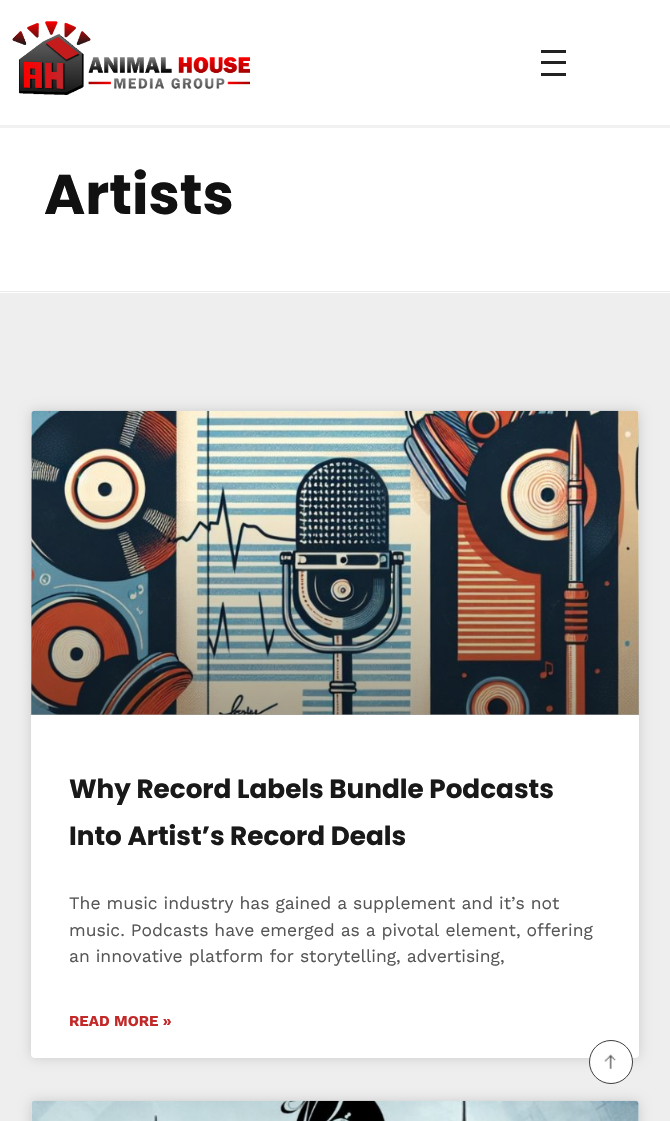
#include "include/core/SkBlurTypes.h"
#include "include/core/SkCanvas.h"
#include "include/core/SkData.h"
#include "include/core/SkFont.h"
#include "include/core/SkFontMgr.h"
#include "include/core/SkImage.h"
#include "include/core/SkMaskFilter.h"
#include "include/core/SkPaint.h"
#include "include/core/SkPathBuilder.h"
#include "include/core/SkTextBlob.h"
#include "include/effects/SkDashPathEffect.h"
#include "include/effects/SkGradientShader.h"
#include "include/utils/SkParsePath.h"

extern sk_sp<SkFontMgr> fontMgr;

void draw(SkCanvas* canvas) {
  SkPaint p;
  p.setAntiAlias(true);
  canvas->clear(SK_ColorWHITE);
  p.setColor(SkColorSetRGB(241, 241, 241));
  canvas->drawRect(SkRect::MakeLTRB(0, 125, 670, 128), p);
  canvas->drawImageRect(SkImages::DeferredFromEncodedData(SkData::MakeFromFileName("images/1.png")), SkRect::MakeLTRB(12, 21, 250, 95), SkSamplingOptions());
  p.setColor(SkColorSetRGB(34, 34, 34));
  canvas->drawRect(SkRect::MakeLTRB(541, 50, 566, 53), p);
  canvas->drawRect(SkRect::MakeLTRB(541, 61, 566, 64), p);
  canvas->drawRect(SkRect::MakeLTRB(541, 73, 566, 76), p);
  p.setColor(SkColorSetRGB(234, 234, 234));
  canvas->drawRect(SkRect::MakeLTRB(0, 291, 670, 292), p);
  p.setColor(SkColorSetRGB(238, 238, 238));
  canvas->drawRect(SkRect::MakeLTRB(0, 293, 670, 1121), p);
  p.setColor(SkColorSetARGB(38, 0, 0, 0));
  p.setMaskFilter(SkMaskFilter::MakeBlur(kNormal_SkBlurStyle, 6));
  canvas->drawRoundRect(SkRect::MakeLTRB(31, 411, 639, 1058), 4, 4, p);
  p.setMaskFilter(nullptr);
  p.setColor(SK_ColorWHITE);
  canvas->drawRoundRect(SkRect::MakeLTRB(31, 411, 639, 1058), 4, 4, p);
  canvas->drawImageRect(SkImages::DeferredFromEncodedData(SkData::MakeFromFileName("images/2.png")), SkRect::MakeLTRB(31, 410, 639, 715), SkSamplingOptions());
  {
    const SkColor colors[] = {SkColorSetARGB(89, 0, 0, 0), SkColorSetARGB(0, 0, 0, 0)};
    const float stops[] = {0, 0.75f};
    const SkPoint ends[] = {{335, 715}, {335, 411}};
    p.setShader(SkGradientShader::MakeLinear(ends, colors, stops, 2, SkTileMode::kClamp));
    p.setAlpha(255);
  }
  canvas->drawRect(SkRect::MakeLTRB(31, 501, 639, 715), p);
  p.setShader(nullptr);
  p.setColor(SkColorSetARGB(38, 0, 0, 0));
  p.setMaskFilter(SkMaskFilter::MakeBlur(kNormal_SkBlurStyle, 6));
  canvas->drawRoundRect(SkRect::MakeLTRB(31, 1101, 639, 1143), 4, 4, p);
  p.setMaskFilter(nullptr);
  p.setColor(SK_ColorWHITE);
  canvas->drawRoundRect(SkRect::MakeLTRB(31, 1101, 639, 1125), 4, 4, p);
  canvas->drawImageRect(SkImages::DeferredFromEncodedData(SkData::MakeFromFileName("images/3.png")), SkRect::MakeLTRB(31, 1100, 639, 1121), SkSamplingOptions());
  canvas->drawCircle(611, 1062, 21.5f, p);
  p.setStyle(SkPaint::kStroke_Style);
  p.setStrokeWidth(1);
  p.setColor(SkColorSetRGB(61, 61, 61));
  canvas->drawCircle(611, 1062, 21.5f, p);
  canvas->drawImageRect(SkImages::DeferredFromEncodedData(SkData::MakeFromFileName("images/4.png")), SkRect::MakeLTRB(604, 1054, 616, 1069), SkSamplingOptions());
  SkFont font1(fontMgr->matchFamilyStyle("Poppins", SkFontStyle::Bold()), 56);
  font1.setSubpixel(true);
  p.setStyle(SkPaint::kFill_Style);
  p.setColor(SkColorSetRGB(17, 17, 17));
  canvas->drawString("Artists", 44, 214, font1, p);
  SkFont font2(fontMgr->matchFamilyStyle("Poppins", SkFontStyle::Bold()), 26.25f);
  font2.setSubpixel(true);
  p.setColor(SkColorSetRGB(26, 25, 25));
  canvas->drawString("Why Record Labels Bundle Podcasts", 69, 798, font2, p);
  canvas->drawString("Into Artist’s Record Deals", 69, 845, font2, p);
  SkFont font3(fontMgr->matchFamilyStyle("Work Sans", SkFontStyle::Normal()), 17.5f);
  font3.setSubpixel(true);
  p.setColor(SkColorSetRGB(86, 86, 86));
  canvas->drawString("The music industry has gained a supplement and it’s not", 69, 909, font3, p);
  canvas->drawString("music. Podcasts have emerged as a pivotal element, offering", 69, 936, font3, p);
  canvas->drawString("an innovative platform for storytelling, advertising,", 69, 962, font3, p);
  SkFont font4(fontMgr->matchFamilyStyle("Work Sans", SkFontStyle::Bold()), 15);
  font4.setSubpixel(true);
  p.setColor(SkColorSetRGB(195, 41, 41));
  canvas->drawString("READ MORE »", 69, 1026, font4, p);
}
